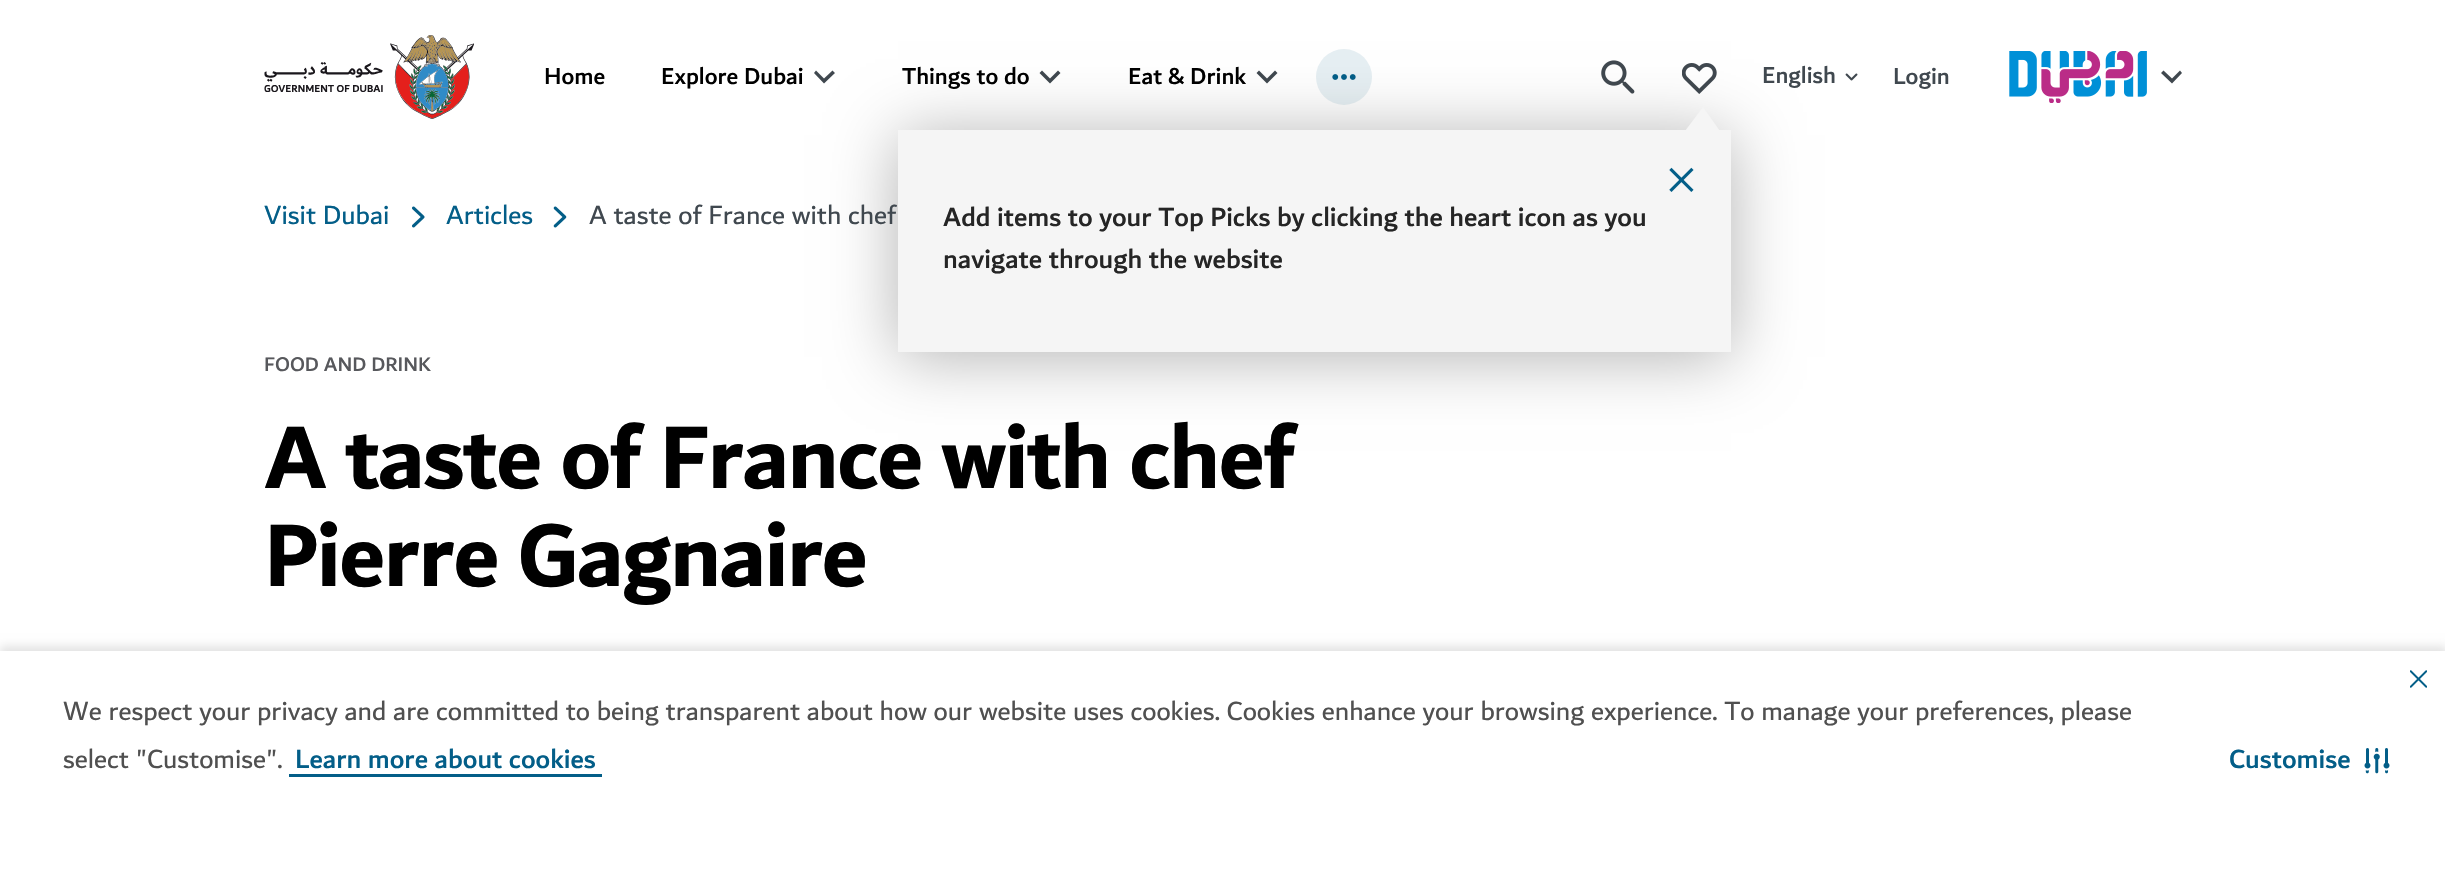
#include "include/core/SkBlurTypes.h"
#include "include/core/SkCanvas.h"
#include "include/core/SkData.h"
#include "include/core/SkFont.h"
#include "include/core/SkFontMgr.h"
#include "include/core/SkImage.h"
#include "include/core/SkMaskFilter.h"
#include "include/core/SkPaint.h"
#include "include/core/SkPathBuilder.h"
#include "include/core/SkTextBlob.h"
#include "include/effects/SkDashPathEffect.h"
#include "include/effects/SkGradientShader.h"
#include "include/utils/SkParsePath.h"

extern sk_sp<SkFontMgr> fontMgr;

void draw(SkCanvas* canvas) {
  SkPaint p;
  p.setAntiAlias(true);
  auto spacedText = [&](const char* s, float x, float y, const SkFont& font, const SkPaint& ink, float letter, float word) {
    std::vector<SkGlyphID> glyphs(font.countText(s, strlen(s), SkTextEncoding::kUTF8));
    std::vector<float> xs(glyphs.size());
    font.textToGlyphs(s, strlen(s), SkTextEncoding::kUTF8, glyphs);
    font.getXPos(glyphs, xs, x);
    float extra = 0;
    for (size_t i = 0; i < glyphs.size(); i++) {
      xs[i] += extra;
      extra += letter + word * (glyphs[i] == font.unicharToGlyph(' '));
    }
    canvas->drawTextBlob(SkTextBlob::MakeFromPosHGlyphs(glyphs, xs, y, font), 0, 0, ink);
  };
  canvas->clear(SK_ColorWHITE);
  canvas->drawImageRect(SkImages::DeferredFromEncodedData(SkData::MakeFromFileName("images/1.png")), SkRect::MakeLTRB(264, 35, 474, 119), SkSamplingOptions());
  p.setColor(SkColorSetRGB(64, 72, 79));
  canvas->drawPath(SkPathBuilder().moveTo(832.5f, 70.5f).lineTo(824, 78.5f).lineTo(816, 70.5f).lineTo(814, 73).lineTo(824, 83.5f).lineTo(835, 73).close().detach(), p);
  canvas->drawPath(SkPathBuilder().moveTo(1058, 70.5f).lineTo(1050, 78.5f).lineTo(1042, 70.5f).lineTo(1039.5f, 73).lineTo(1050, 83.5f).lineTo(1060.5f, 73).close().detach(), p);
  canvas->drawPath(SkPathBuilder().moveTo(1275, 70.5f).lineTo(1267, 78.5f).lineTo(1259, 70.5f).lineTo(1256.5f, 73).lineTo(1267, 83.5f).lineTo(1277.5f, 73).close().detach(), p);
  p.setColor(SkColorSetRGB(230, 239, 243));
  canvas->drawCircle(1344, 77, 28, p);
  canvas->drawImageRect(SkImages::DeferredFromEncodedData(SkData::MakeFromFileName("images/2.png")), SkRect::MakeLTRB(1332, 74, 1356, 80), SkSamplingOptions());
  canvas->drawImageRect(SkImages::DeferredFromEncodedData(SkData::MakeFromFileName("images/3.png")), SkRect::MakeLTRB(1601, 60, 1635, 94), SkSamplingOptions());
  canvas->drawImageRect(SkImages::DeferredFromEncodedData(SkData::MakeFromFileName("images/4.png")), SkRect::MakeLTRB(1845, 73, 1858, 81), SkSamplingOptions());
  canvas->drawImageRect(SkImages::DeferredFromEncodedData(SkData::MakeFromFileName("images/5.png")), SkRect::MakeLTRB(1682, 63, 1717, 94), SkSamplingOptions());
  p.setColor(SkColorSetARGB(77, 0, 0, 0));
  p.setMaskFilter(SkMaskFilter::MakeBlur(kNormal_SkBlurStyle, 31.5f));
  canvas->drawRect(SkRect::MakeLTRB(898, 135, 1731, 357), p);
  p.setMaskFilter(nullptr);
  p.setColor(SkColorSetRGB(245, 245, 245));
  canvas->drawRect(SkRect::MakeLTRB(898, 130, 1731, 352), p);
  canvas->drawPath(SkPathBuilder().moveTo(1720, 131).lineTo(1685, 131).lineTo(1703, 107).close().detach(), p);
  canvas->drawImageRect(SkImages::DeferredFromEncodedData(SkData::MakeFromFileName("images/6.png")), SkRect::MakeLTRB(1669, 167, 1694, 192), SkSamplingOptions());
  canvas->drawImageRect(SkImages::DeferredFromEncodedData(SkData::MakeFromFileName("images/7.png")), SkRect::MakeLTRB(2009, 51, 2147, 103), SkSamplingOptions());
  p.setColor(SkColorSetRGB(64, 72, 79));
  canvas->drawPath(SkPathBuilder().moveTo(2163.5f, 70.5f).lineTo(2172, 78.5f).lineTo(2180, 70.5f).lineTo(2182, 73).lineTo(2172, 83.5f).lineTo(2161, 73).close().detach(), p);
  canvas->drawImageRect(SkImages::DeferredFromEncodedData(SkData::MakeFromFileName("images/8.png")), SkRect::MakeLTRB(412, 206, 425, 228), SkSamplingOptions());
  canvas->drawImageRect(SkImages::DeferredFromEncodedData(SkData::MakeFromFileName("images/9.png")), SkRect::MakeLTRB(553, 206, 567, 228), SkSamplingOptions());
  p.setColor(SkColorSetARGB(28, 0, 0, 0));
  p.setMaskFilter(SkMaskFilter::MakeBlur(kNormal_SkBlurStyle, 4.5f));
  canvas->drawRect(SkRect::MakeLTRB(0, 646, 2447, 866), p);
  p.setMaskFilter(nullptr);
  p.setColor(SK_ColorWHITE);
  canvas->drawRect(SkRect::MakeLTRB(0, 651, 2445, 870), p);
  {
    const SkColor colors[] = {SK_ColorWHITE, SK_ColorWHITE, SkColorSetRGB(3, 94, 136), SkColorSetRGB(3, 94, 136), SK_ColorWHITE};
    const float stops[] = {0, 0.2f, 0.2f, 0.27f, 0.27f};
    const SkPoint ends[] = {{445, 788}, {445, 735}};
    p.setShader(SkGradientShader::MakeLinear(ends, colors, stops, 5, SkTileMode::kClamp));
    p.setAlpha(255);
  }
  canvas->drawRect(SkRect::MakeLTRB(289, 774, 602, 777), p);
  canvas->drawImageRect(SkImages::DeferredFromEncodedData(SkData::MakeFromFileName("images/10.png")), SkRect::MakeLTRB(2410, 670, 2427, 688), SkSamplingOptions());
  canvas->drawImageRect(SkImages::DeferredFromEncodedData(SkData::MakeFromFileName("images/11.png")), SkRect::MakeLTRB(2364, 748, 2390, 774), SkSamplingOptions());
  SkFont font1(fontMgr->matchFamilyStyle("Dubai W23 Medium", SkFontStyle(500, SkFontStyle::kNormal_Width, SkFontStyle::kUpright_Slant)), 24.5f);
  font1.setSubpixel(true);
  p.setShader(nullptr);
  p.setColor(SK_ColorBLACK);
  canvas->drawString("Home", 544, 84, font1, p);
  canvas->drawString("Explore Dubai", 661, 84, font1, p);
  canvas->drawString("Things to do", 902, 84, font1, p);
  canvas->drawString("Eat & Drink", 1128, 84, font1, p);
  p.setColor(SkColorSetRGB(64, 72, 79));
  canvas->drawString("English", 1762, 83, font1, p);
  canvas->drawString("Login", 1893, 84, font1, p);
  SkFont font2(fontMgr->matchFamilyStyle("Dubai W23 Medium", SkFontStyle(500, SkFontStyle::kNormal_Width, SkFontStyle::kUpright_Slant)), 28);
  font2.setSubpixel(true);
  p.setColor(SkColorSetRGB(37, 37, 37));
  canvas->drawString("Add items to your Top Picks by clicking the heart icon as you", 943, 226, font2, p);
  canvas->drawString("navigate through the website", 943, 268, font2, p);
  SkFont font3(fontMgr->matchFamilyStyle("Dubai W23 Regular", SkFontStyle::Normal()), 28);
  font3.setSubpixel(true);
  p.setColor(SkColorSetRGB(3, 94, 136));
  canvas->drawString("Visit Dubai", 264, 224, font3, p);
  canvas->drawString("Articles", 446, 224, font3, p);
  p.setColor(SkColorSetRGB(64, 72, 79));
  canvas->drawString("A taste of France with chef", 589, 224, font3, p);
  SkFont font4(fontMgr->matchFamilyStyle("Dubai W23 Medium", SkFontStyle(500, SkFontStyle::kNormal_Width, SkFontStyle::kUpright_Slant)), 21);
  font4.setSubpixel(true);
  p.setColor(SkColorSetRGB(87, 88, 92));
  canvas->drawString("FOOD AND DRINK", 264, 371, font4, p);
  SkFont font5(fontMgr->matchFamilyStyle("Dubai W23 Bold", SkFontStyle::Bold()), 94.5f);
  font5.setSubpixel(true);
  p.setColor(SK_ColorBLACK);
  spacedText("A taste of France with chef", 264, 488, font5, p, -1.75f, 0);
  spacedText("Pierre Gagnaire", 264, 586, font5, p, -1.75f, 0);
  p.setColor(SkColorSetRGB(80, 80, 80));
  canvas->drawString("We respect your privacy and are committed to being transparent about how our website uses cookies. Cookies enhance your browsing experience. To manage your preferences, please", 63, 720, font3, p);
  canvas->drawString("select \"Customise\".", 63, 768, font3, p);
  p.setColor(SkColorSetRGB(3, 94, 136));
  canvas->drawString("Learn more about cookies", 295, 768, font2, p);
  canvas->drawString("Customise", 2229, 768, font2, p);
}
